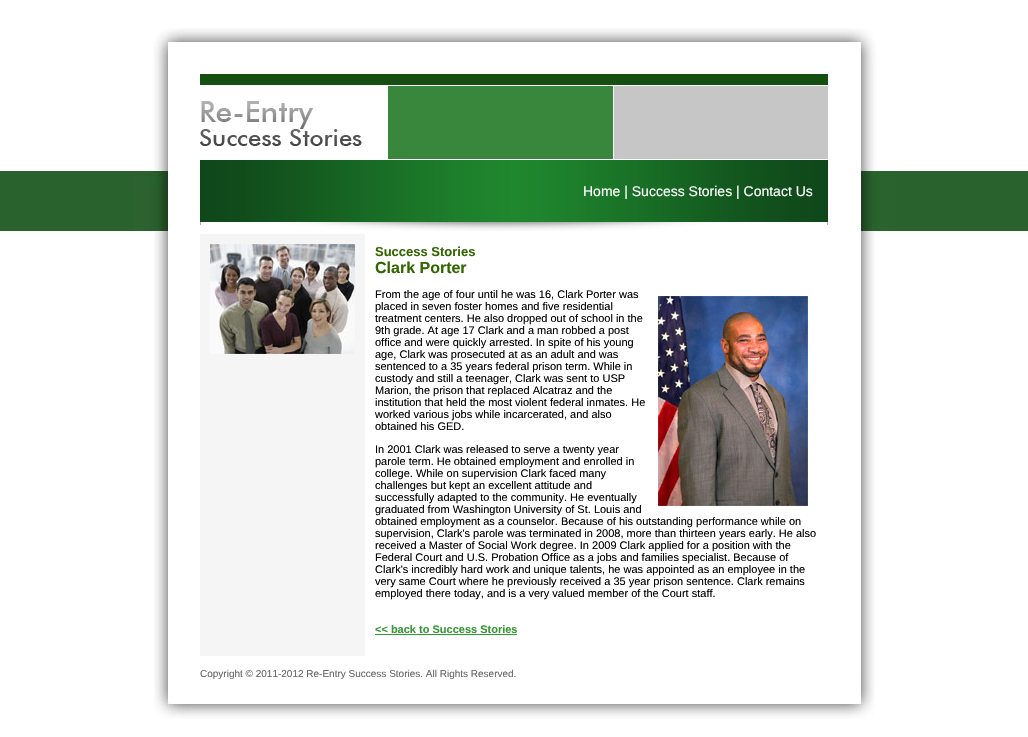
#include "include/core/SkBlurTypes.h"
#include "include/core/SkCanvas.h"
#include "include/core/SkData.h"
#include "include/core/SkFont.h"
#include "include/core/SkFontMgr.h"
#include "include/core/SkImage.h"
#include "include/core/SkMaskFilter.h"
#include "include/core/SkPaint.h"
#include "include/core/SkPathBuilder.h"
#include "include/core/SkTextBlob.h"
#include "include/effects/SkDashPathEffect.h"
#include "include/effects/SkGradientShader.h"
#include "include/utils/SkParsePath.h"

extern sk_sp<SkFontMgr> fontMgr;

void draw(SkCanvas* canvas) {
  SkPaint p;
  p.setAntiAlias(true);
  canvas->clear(SK_ColorWHITE);
  canvas->drawImageRect(SkImages::DeferredFromEncodedData(SkData::MakeFromFileName("images/1.png")), SkRect::MakeLTRB(156, 28, 873, 42), SkSamplingOptions());
  p.setColor(SkColorSetRGB(42, 98, 46));
  canvas->drawRect(SkRect::MakeLTRB(0, 171, 134, 231), p);
  canvas->drawImageRect(SkImages::DeferredFromEncodedData(SkData::MakeFromFileName("images/2.png")), SkRect::MakeLTRB(154, 231, 168, 679), SkSamplingOptions());
  canvas->drawImageRect(SkImages::DeferredFromEncodedData(SkData::MakeFromFileName("images/3.png")), SkRect::MakeLTRB(134, 42, 168, 231), SkSamplingOptions());
  p.setColor(SkColorSetRGB(22, 79, 18));
  canvas->drawRect(SkRect::MakeLTRB(200, 74, 828, 85), p);
  canvas->drawImageRect(SkImages::DeferredFromEncodedData(SkData::MakeFromFileName("images/4.png")), SkRect::MakeLTRB(200, 101, 362, 146), SkSamplingOptions());
  canvas->drawImageRect(SkImages::DeferredFromEncodedData(SkData::MakeFromFileName("images/5.png")), SkRect::MakeLTRB(388, 86, 828, 159), SkSamplingOptions());
  canvas->drawImageRect(SkImages::DeferredFromEncodedData(SkData::MakeFromFileName("images/6.png")), SkRect::MakeLTRB(200, 160, 828, 222), SkSamplingOptions());
  canvas->drawImageRect(SkImages::DeferredFromEncodedData(SkData::MakeFromFileName("images/7.png")), SkRect::MakeLTRB(200, 222, 828, 231), SkSamplingOptions());
  p.setColor(SkColorSetRGB(245, 245, 245));
  canvas->drawRect(SkRect::MakeLTRB(200, 234, 365, 656), p);
  canvas->drawImageRect(SkImages::DeferredFromEncodedData(SkData::MakeFromFileName("images/8.png")), SkRect::MakeLTRB(210, 244, 355, 354), SkSamplingOptions());
  canvas->drawImageRect(SkImages::DeferredFromEncodedData(SkData::MakeFromFileName("images/9.png")), SkRect::MakeLTRB(658, 296, 808, 506), SkSamplingOptions());
  p.setColor(SkColorSetRGB(51, 153, 51));
  canvas->drawRect(SkRect::MakeLTRB(375, 634, 517, 635), p);
  canvas->drawImageRect(SkImages::DeferredFromEncodedData(SkData::MakeFromFileName("images/10.png")), SkRect::MakeLTRB(861, 231, 875, 679), SkSamplingOptions());
  canvas->drawImageRect(SkImages::DeferredFromEncodedData(SkData::MakeFromFileName("images/11.png")), SkRect::MakeLTRB(861, 42, 895, 231), SkSamplingOptions());
  p.setColor(SkColorSetRGB(42, 98, 46));
  canvas->drawRect(SkRect::MakeLTRB(895, 171, 1028, 231), p);
  SkFont font1(fontMgr->matchFamilyStyle("Liberation Sans", SkFontStyle::Normal()), 14);
  font1.setSubpixel(true);
  p.setColor(SK_ColorWHITE);
  canvas->drawString("Home | Success Stories | Contact Us", 583, 196, font1, p);
  SkFont font2(fontMgr->matchFamilyStyle("Liberation Sans", SkFontStyle::Bold()), 13);
  font2.setSubpixel(true);
  p.setColor(SkColorSetRGB(51, 102, 0));
  canvas->drawString("Success Stories", 375, 256, font2, p);
  SkFont font3(fontMgr->matchFamilyStyle("Liberation Sans", SkFontStyle::Bold()), 16);
  font3.setSubpixel(true);
  canvas->drawString("Clark Porter", 375, 273, font3, p);
  SkFont font4(fontMgr->matchFamilyStyle("Liberation Sans", SkFontStyle::Normal()), 11);
  font4.setSubpixel(true);
  p.setColor(SK_ColorBLACK);
  canvas->drawString("From the age of four until he was 16, Clark Porter was", 375, 298, font4, p);
  canvas->drawString("placed in seven foster homes and five residential", 375, 310, font4, p);
  canvas->drawString("treatment centers. He also dropped out of school in the", 375, 322, font4, p);
  canvas->drawString("9th grade. At age 17 Clark and a man robbed a post", 375, 334, font4, p);
  canvas->drawString("office and were quickly arrested. In spite of his young", 375, 346, font4, p);
  canvas->drawString("age, Clark was prosecuted at as an adult and was", 375, 358, font4, p);
  canvas->drawString("sentenced to a 35 years federal prison term. While in", 375, 370, font4, p);
  canvas->drawString("custody and still a teenager, Clark was sent to USP", 375, 382, font4, p);
  canvas->drawString("Marion, the prison that replaced Alcatraz and the", 375, 394, font4, p);
  canvas->drawString("institution that held the most violent federal inmates. He", 375, 406, font4, p);
  canvas->drawString("worked various jobs while incarcerated, and also", 375, 418, font4, p);
  canvas->drawString("obtained his GED.", 375, 430, font4, p);
  canvas->drawString("In 2001 Clark was released to serve a twenty year", 375, 453, font4, p);
  canvas->drawString("parole term. He obtained employment and enrolled in", 375, 465, font4, p);
  canvas->drawString("college. While on supervision Clark faced many", 375, 477, font4, p);
  canvas->drawString("challenges but kept an excellent attitude and", 375, 489, font4, p);
  canvas->drawString("successfully adapted to the community. He eventually", 375, 501, font4, p);
  canvas->drawString("graduated from Washington University of St. Louis and", 375, 513, font4, p);
  canvas->drawString("obtained employment as a counselor. Because of his outstanding performance while on", 375, 525, font4, p);
  canvas->drawString("supervision, Clark's parole was terminated in 2008, more than thirteen years early. He also", 375, 537, font4, p);
  canvas->drawString("received a Master of Social Work degree. In 2009 Clark applied for a position with the", 375, 549, font4, p);
  canvas->drawString("Federal Court and U.S. Probation Office as a jobs and families specialist. Because of", 375, 561, font4, p);
  canvas->drawString("Clark's incredibly hard work and unique talents, he was appointed as an employee in the", 375, 573, font4, p);
  canvas->drawString("very same Court where he previously received a 35 year prison sentence. Clark remains", 375, 585, font4, p);
  canvas->drawString("employed there today, and is a very valued member of the Court staff.", 375, 597, font4, p);
  SkFont font5(fontMgr->matchFamilyStyle("Liberation Sans", SkFontStyle::Bold()), 11);
  font5.setSubpixel(true);
  p.setColor(SkColorSetRGB(51, 153, 51));
  canvas->drawString("<< back to Success Stories", 375, 633, font5, p);
  SkFont font6(fontMgr->matchFamilyStyle("Liberation Sans", SkFontStyle::Normal()), 10);
  font6.setSubpixel(true);
  p.setColor(SkColorSetRGB(102, 102, 102));
  canvas->drawString("Copyright © 2011-2012 Re-Entry Success Stories. All Rights Reserved.", 200, 677, font6, p);
  canvas->drawImageRect(SkImages::DeferredFromEncodedData(SkData::MakeFromFileName("images/12.png")), SkRect::MakeLTRB(154, 679, 875, 719), SkSamplingOptions());
}
